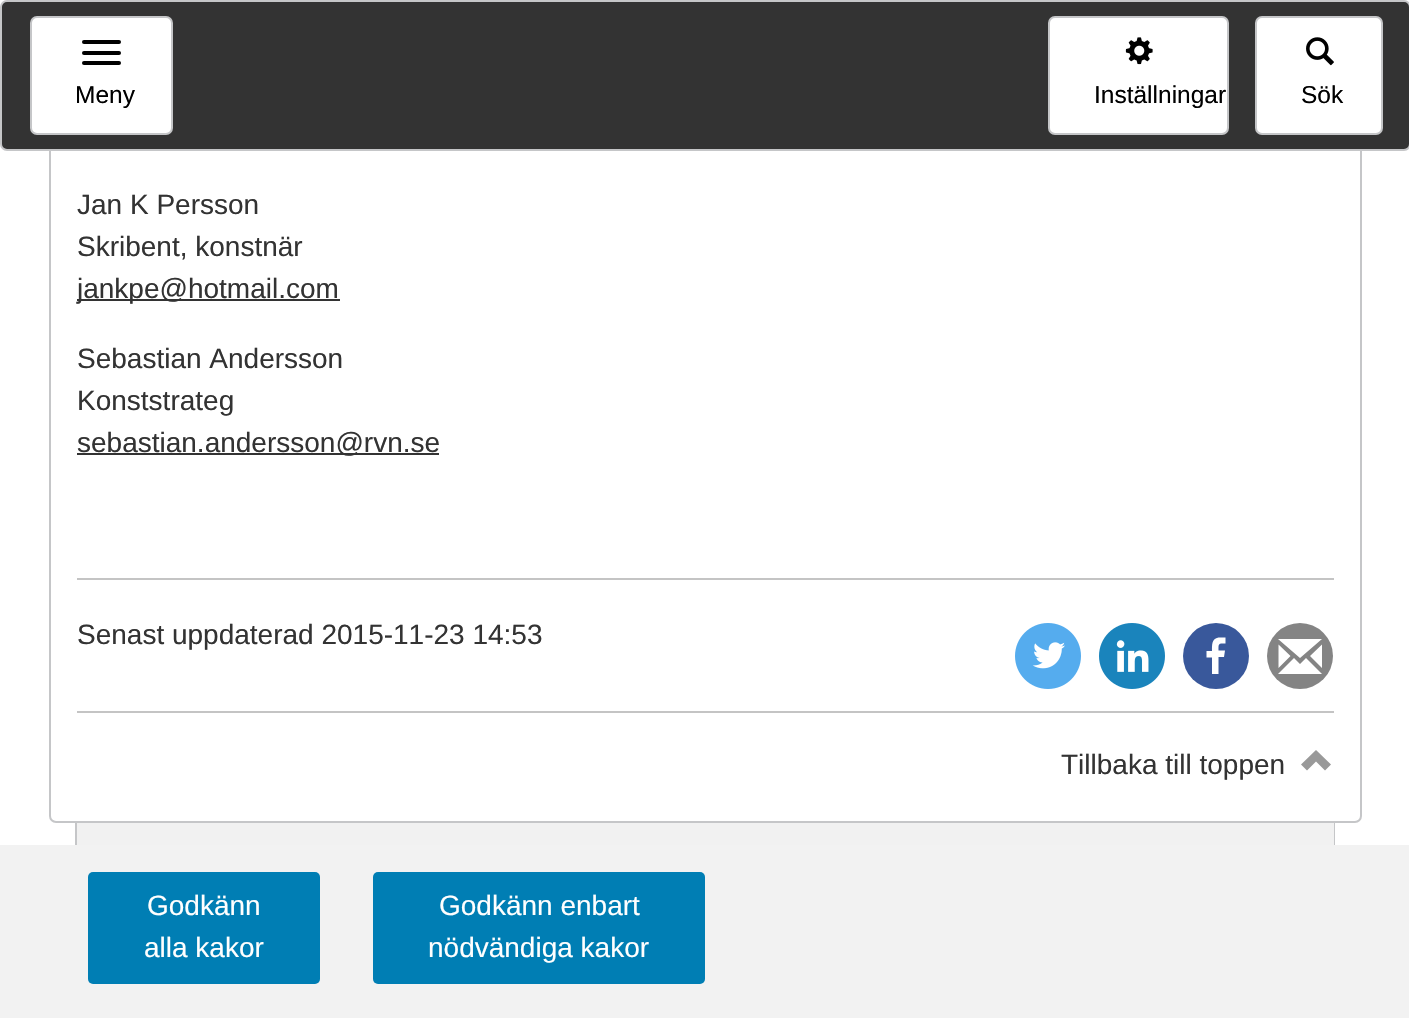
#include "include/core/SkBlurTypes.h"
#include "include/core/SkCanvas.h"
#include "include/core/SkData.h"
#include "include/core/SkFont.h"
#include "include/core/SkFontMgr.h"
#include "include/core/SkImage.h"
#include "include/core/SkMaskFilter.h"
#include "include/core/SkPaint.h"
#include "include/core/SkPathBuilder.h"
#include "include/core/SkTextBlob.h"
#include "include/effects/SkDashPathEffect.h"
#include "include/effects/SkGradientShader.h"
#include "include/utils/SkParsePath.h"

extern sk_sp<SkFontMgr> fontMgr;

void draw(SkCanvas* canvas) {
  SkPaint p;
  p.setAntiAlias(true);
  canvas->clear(SK_ColorWHITE);
  p.setStyle(SkPaint::kStroke_Style);
  p.setStrokeWidth(2);
  p.setColor(SkColorSetRGB(197, 198, 200));
  canvas->drawRoundRect(SkRect::MakeLTRB(50, -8, 1361, 822), 6, 6, p);
  p.setStyle(SkPaint::kFill_Style);
  p.setColor(SkColorSetRGB(51, 51, 51));
  canvas->drawRoundRect(SkRect::MakeLTRB(1, 1, 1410, 150), 6, 6, p);
  p.setStyle(SkPaint::kStroke_Style);
  p.setColor(SkColorSetRGB(197, 198, 200));
  canvas->drawRoundRect(SkRect::MakeLTRB(1, 1, 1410, 150), 6, 6, p);
  p.setStyle(SkPaint::kFill_Style);
  p.setColor(SK_ColorWHITE);
  canvas->drawRoundRect(SkRect::MakeLTRB(31, 17, 172, 134), 6, 6, p);
  p.setStyle(SkPaint::kStroke_Style);
  p.setColor(SkColorSetRGB(197, 198, 200));
  canvas->drawRoundRect(SkRect::MakeLTRB(31, 17, 172, 134), 6, 6, p);
  p.setStyle(SkPaint::kFill_Style);
  p.setColor(SK_ColorBLACK);
  canvas->drawRoundRect(SkRect::MakeLTRB(82, 40, 121, 44), 2, 2, p);
  canvas->drawRoundRect(SkRect::MakeLTRB(82, 51, 121, 55), 2, 2, p);
  canvas->drawRoundRect(SkRect::MakeLTRB(82, 61, 121, 65), 2, 2, p);
  p.setColor(SK_ColorWHITE);
  canvas->drawRoundRect(SkRect::MakeLTRB(1049, 17, 1228, 134), 6, 6, p);
  p.setStyle(SkPaint::kStroke_Style);
  p.setColor(SkColorSetRGB(197, 198, 200));
  canvas->drawRoundRect(SkRect::MakeLTRB(1049, 17, 1228, 134), 6, 6, p);
  canvas->drawImageRect(SkImages::DeferredFromEncodedData(SkData::MakeFromFileName("images/1.png")), SkRect::MakeLTRB(1125, 37, 1153, 65), SkSamplingOptions());
  p.setStyle(SkPaint::kFill_Style);
  p.setColor(SK_ColorWHITE);
  canvas->drawRoundRect(SkRect::MakeLTRB(1256, 17, 1382, 134), 6, 6, p);
  p.setStyle(SkPaint::kStroke_Style);
  p.setColor(SkColorSetRGB(197, 198, 200));
  canvas->drawRoundRect(SkRect::MakeLTRB(1256, 17, 1382, 134), 6, 6, p);
  canvas->drawImageRect(SkImages::DeferredFromEncodedData(SkData::MakeFromFileName("images/2.png")), SkRect::MakeLTRB(1306, 37, 1334, 66), SkSamplingOptions());
  p.setStyle(SkPaint::kFill_Style);
  p.setColor(SkColorSetRGB(51, 51, 51));
  canvas->drawRect(SkRect::MakeLTRB(77, 299, 340, 301), p);
  canvas->drawRect(SkRect::MakeLTRB(77, 453, 439, 455), p);
  p.setColor(SkColorSetRGB(196, 196, 196));
  canvas->drawRect(SkRect::MakeLTRB(77, 578, 1334, 580), p);
  canvas->drawImageRect(SkImages::DeferredFromEncodedData(SkData::MakeFromFileName("images/3.png")), SkRect::MakeLTRB(1015, 623, 1081, 689), SkSamplingOptions());
  canvas->drawImageRect(SkImages::DeferredFromEncodedData(SkData::MakeFromFileName("images/4.png")), SkRect::MakeLTRB(1099, 623, 1165, 689), SkSamplingOptions());
  p.setColor(SkColorSetRGB(57, 88, 155));
  canvas->drawCircle(1216, 656, 33, p);
  p.setColor(SkColorSetRGB(132, 132, 132));
  canvas->drawCircle(1300, 656, 33, p);
  p.setColor(SK_ColorWHITE);
  canvas->drawPath(SkPathBuilder().moveTo(1322, 639).lineTo(1300, 658).lineTo(1278, 639).moveTo(1278, 674).lineTo(1294, 658).lineTo(1300, 664).lineTo(1306, 658).lineTo(1322, 674).detach(), p);
  canvas->drawPath(SkPathBuilder().moveTo(1278.5f, 644.5f).lineTo(1290.5f, 656).lineTo(1278.5f, 668).moveTo(1322, 668).lineTo(1310, 656).lineTo(1322, 644.5f).detach(), p);
  canvas->drawPath(SkPathBuilder().moveTo(1218.5f, 674).lineTo(1218.5f, 657).lineTo(1224, 657).lineTo(1225, 650.5f).lineTo(1218.5f, 650.5f).cubicTo(1218.5f, 643.5f, 1218, 643.5f, 1225.5f, 643.5f).lineTo(1225.5f, 637.5f).lineTo(1218.5f, 637.5f).cubicTo(1211.5f, 638.5f, 1212, 645.5f, 1212, 651).lineTo(1206.5f, 651).lineTo(1206.5f, 657.5f).lineTo(1212, 657.5f).lineTo(1212, 674).close().detach(), p);
  p.setColor(SkColorSetRGB(196, 196, 196));
  canvas->drawRect(SkRect::MakeLTRB(77, 711, 1334, 713), p);
  p.setColor(SkColorSetRGB(153, 153, 153));
  canvas->drawPath(SkPathBuilder().moveTo(1325, 770.5f).lineTo(1331, 764.5f).lineTo(1316, 750).lineTo(1301, 764.5f).lineTo(1307, 770.5f).lineTo(1316, 761.5f).close().detach(), p);
  p.setColor(SkColorSetRGB(241, 241, 241));
  canvas->drawRect(SkRect::MakeLTRB(77, 823, 1334, 845), p);
  p.setColor(SkColorSetRGB(197, 198, 200));
  canvas->drawPath(SkPathBuilder(SkPathFillType::kEvenOdd).moveTo(75, 822).lineTo(1335, 822).lineTo(1335, 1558).cubicTo(1335, 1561, 1332, 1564, 1328, 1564).lineTo(82, 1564).cubicTo(78, 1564, 75, 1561, 75, 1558).close().moveTo(77, 822).lineTo(1334, 822).lineTo(1334, 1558).cubicTo(1334, 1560, 1331, 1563, 1328, 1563).lineTo(82, 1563).cubicTo(79, 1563, 77, 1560, 77, 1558).close().detach(), p);
  p.setColor(SkColorSetRGB(242, 242, 242));
  canvas->drawRect(SkRect::MakeLTRB(0, 845, 1409, 1018), p);
  p.setColor(SkColorSetRGB(0, 126, 180));
  canvas->drawRoundRect(SkRect::MakeLTRB(88, 872, 320, 984), 5, 5, p);
  canvas->drawRoundRect(SkRect::MakeLTRB(373, 872, 705, 984), 5, 5, p);
  SkFont font1(fontMgr->matchFamilyStyle("Liberation Sans", SkFontStyle::Normal()), 24.5f);
  font1.setSubpixel(true);
  p.setColor(SK_ColorBLACK);
  canvas->drawString("Meny", 75, 103, font1, p);
  canvas->drawString("Inställningar", 1094, 103, font1, p);
  canvas->drawString("Sök", 1301, 103, font1, p);
  SkFont font2(fontMgr->matchFamilyStyle("Liberation Sans", SkFontStyle::Normal()), 28);
  font2.setSubpixel(true);
  p.setColor(SkColorSetRGB(51, 51, 51));
  canvas->drawString("Jan K Persson", 77, 214, font2, p);
  canvas->drawString("Skribent, konstnär", 77, 256, font2, p);
  canvas->drawString("jankpe@hotmail.com", 77, 298, font2, p);
  canvas->drawString("Sebastian Andersson", 77, 368, font2, p);
  canvas->drawString("Konststrateg", 77, 410, font2, p);
  canvas->drawString("sebastian.andersson@rvn.se", 77, 452, font2, p);
  canvas->drawString("Senast uppdaterad 2015-11-23 14:53", 77, 644, font2, p);
  canvas->drawString("Tillbaka till toppen", 1061, 774, font2, p);
  p.setColor(SK_ColorWHITE);
  canvas->drawString("Godkänn", 147, 915, font2, p);
  canvas->drawString("alla kakor", 144, 957, font2, p);
  canvas->drawString("Godkänn enbart", 439, 915, font2, p);
  canvas->drawString("nödvändiga kakor", 428, 957, font2, p);
}
